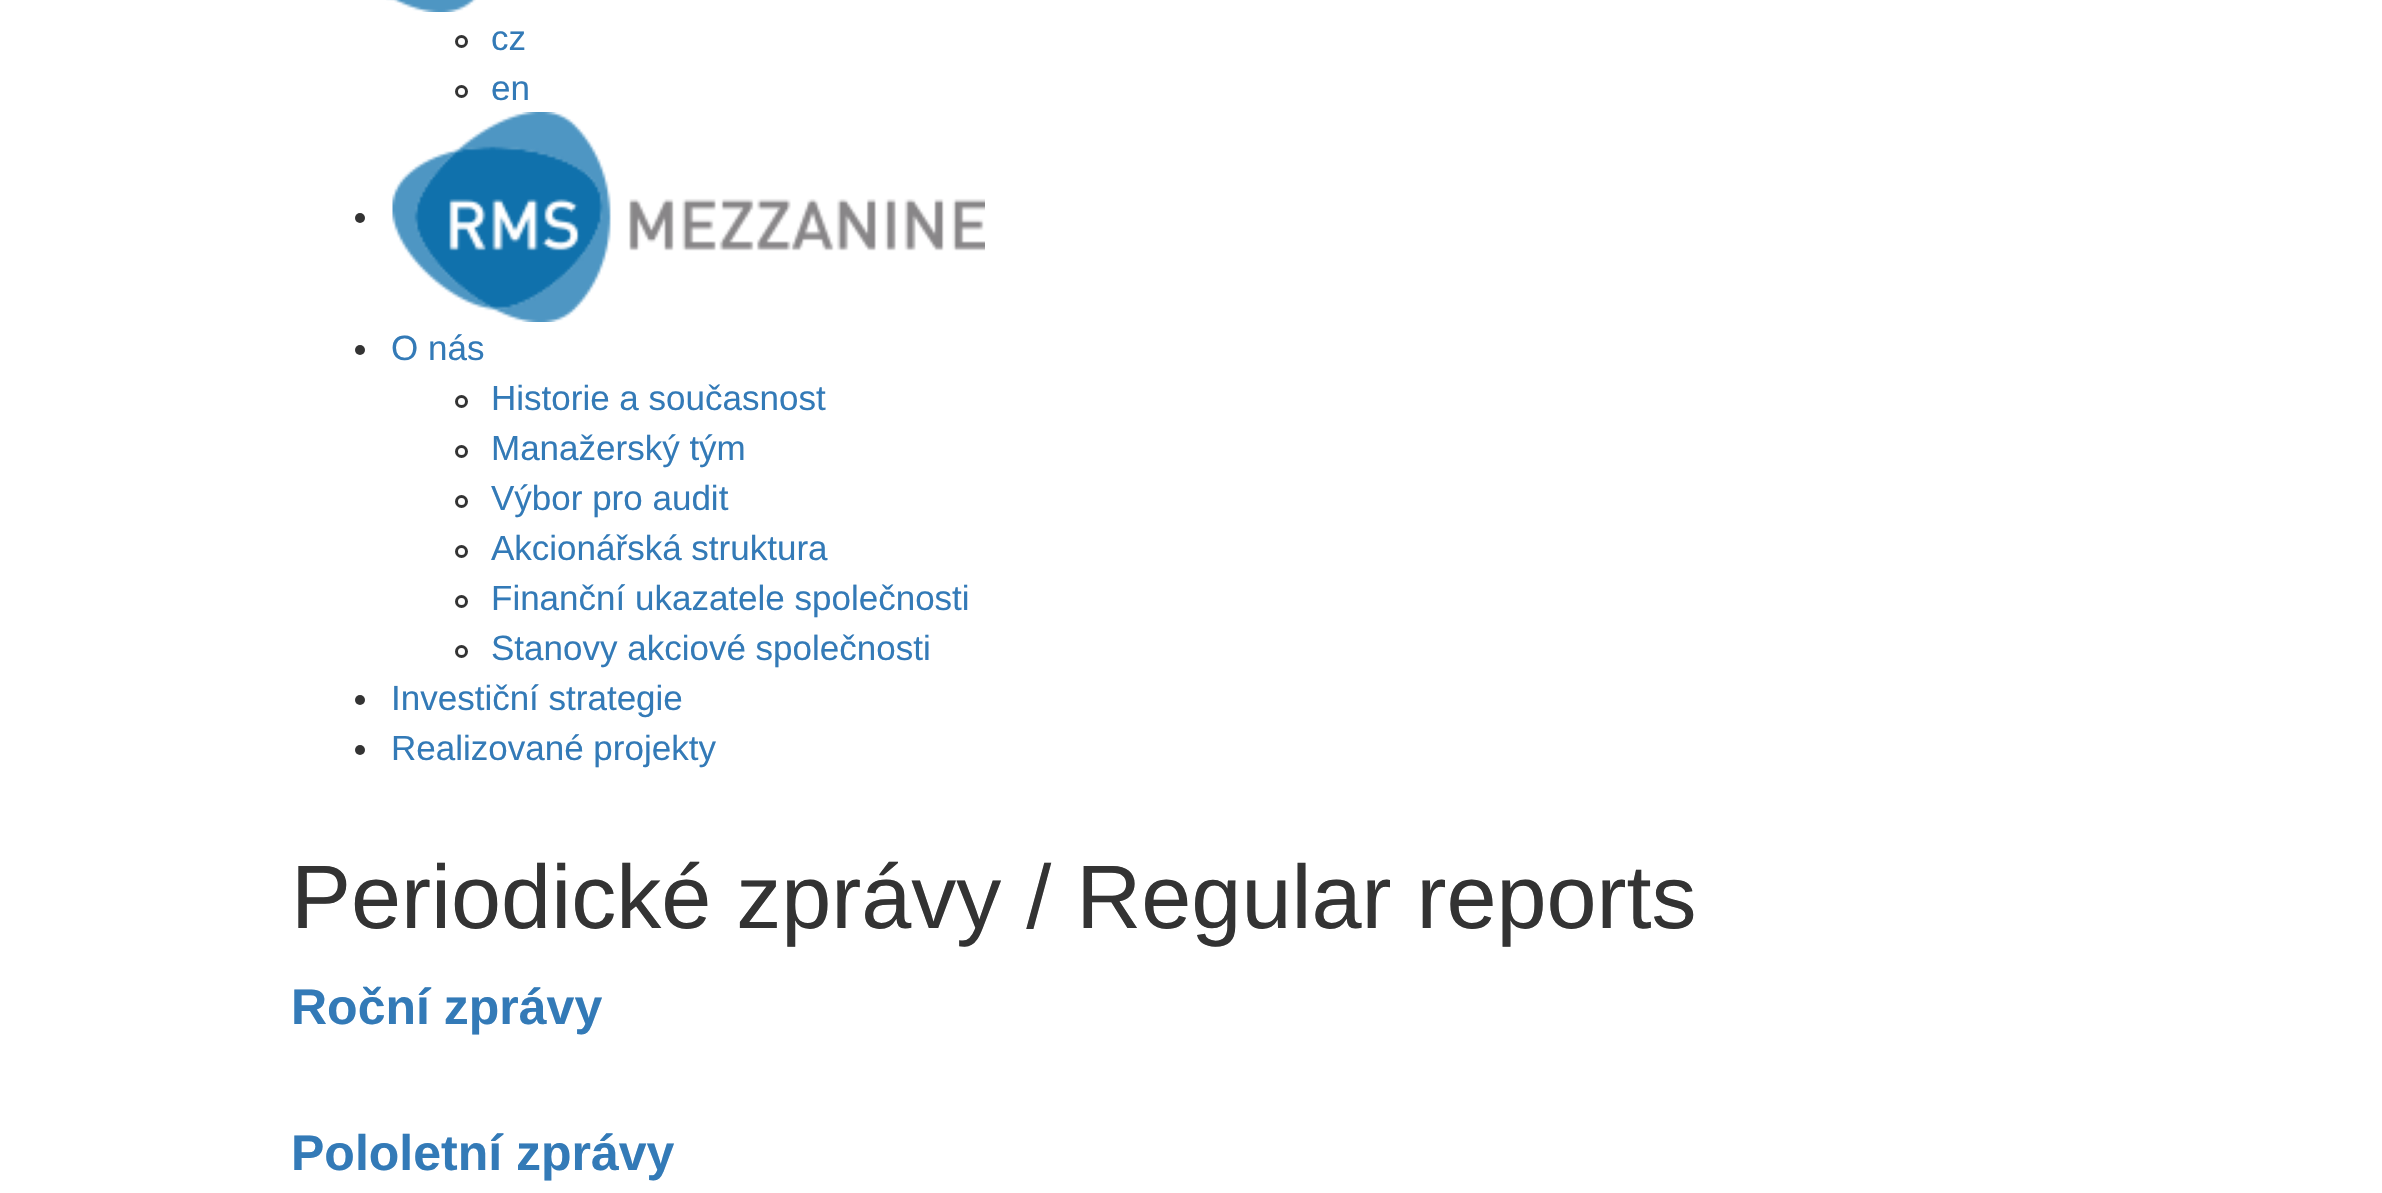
#include "include/core/SkBlurTypes.h"
#include "include/core/SkCanvas.h"
#include "include/core/SkData.h"
#include "include/core/SkFont.h"
#include "include/core/SkFontMgr.h"
#include "include/core/SkImage.h"
#include "include/core/SkMaskFilter.h"
#include "include/core/SkPaint.h"
#include "include/core/SkPathBuilder.h"
#include "include/core/SkTextBlob.h"
#include "include/effects/SkDashPathEffect.h"
#include "include/effects/SkGradientShader.h"
#include "include/utils/SkParsePath.h"

extern sk_sp<SkFontMgr> fontMgr;

void draw(SkCanvas* canvas) {
  SkPaint p;
  p.setAntiAlias(true);
  canvas->clear(SK_ColorWHITE);
  canvas->drawImageRect(SkImages::DeferredFromEncodedData(SkData::MakeFromFileName("images/1.png")), SkRect::MakeLTRB(386, 0, 476, 12), SkSamplingOptions());
  p.setStyle(SkPaint::kStroke_Style);
  p.setStrokeWidth(3);
  p.setColor(SkColorSetRGB(51, 51, 51));
  canvas->drawCircle(461.5f, 41.5f, 5, p);
  canvas->drawCircle(461.5f, 91.5f, 5, p);
  p.setStyle(SkPaint::kFill_Style);
  canvas->drawCircle(360, 218, 5, p);
  canvas->drawImageRect(SkImages::DeferredFromEncodedData(SkData::MakeFromFileName("images/2.png")), SkRect::MakeLTRB(392, 112, 985, 322), SkSamplingOptions());
  canvas->drawCircle(360, 350, 5, p);
  p.setStyle(SkPaint::kStroke_Style);
  canvas->drawCircle(461.5f, 401.5f, 5, p);
  canvas->drawCircle(461.5f, 451.5f, 5, p);
  canvas->drawCircle(461.5f, 501.5f, 5, p);
  canvas->drawCircle(461.5f, 551.5f, 5, p);
  canvas->drawCircle(461.5f, 601.5f, 5, p);
  canvas->drawCircle(461.5f, 651.5f, 5, p);
  p.setStyle(SkPaint::kFill_Style);
  canvas->drawCircle(360, 700, 5, p);
  canvas->drawCircle(360, 750, 5, p);
  SkFont font1(fontMgr->matchFamilyStyle("Liberation Sans", SkFontStyle::Normal()), 35);
  font1.setSubpixel(true);
  p.setColor(SkColorSetRGB(51, 122, 183));
  canvas->drawString("cz", 491, 50, font1, p);
  canvas->drawString("en", 491, 100, font1, p);
  canvas->drawString("O nás", 391, 360, font1, p);
  canvas->drawString("Historie a současnost", 491, 410, font1, p);
  canvas->drawString("Manažerský tým", 491, 460, font1, p);
  canvas->drawString("Výbor pro audit", 491, 510, font1, p);
  canvas->drawString("Akcionářská struktura", 491, 560, font1, p);
  canvas->drawString("Finanční ukazatele společnosti", 491, 610, font1, p);
  canvas->drawString("Stanovy akciové společnosti", 491, 660, font1, p);
  canvas->drawString("Investiční strategie", 391, 710, font1, p);
  canvas->drawString("Realizované projekty", 391, 760, font1, p);
  SkFont font2(fontMgr->matchFamilyStyle("Liberation Sans", SkFontStyle::Normal()), 90);
  font2.setSubpixel(true);
  p.setColor(SkColorSetRGB(51, 51, 51));
  canvas->drawString("Periodické zprávy / Regular reports", 291, 928, font2, p);
  SkFont font3(fontMgr->matchFamilyStyle("Liberation Sans", SkFontStyle::Bold()), 50);
  font3.setSubpixel(true);
  p.setColor(SkColorSetRGB(51, 122, 183));
  canvas->drawString("Roční zprávy", 291, 1024, font3, p);
  canvas->drawString("Pololetní zprávy", 291, 1170, font3, p);
}
